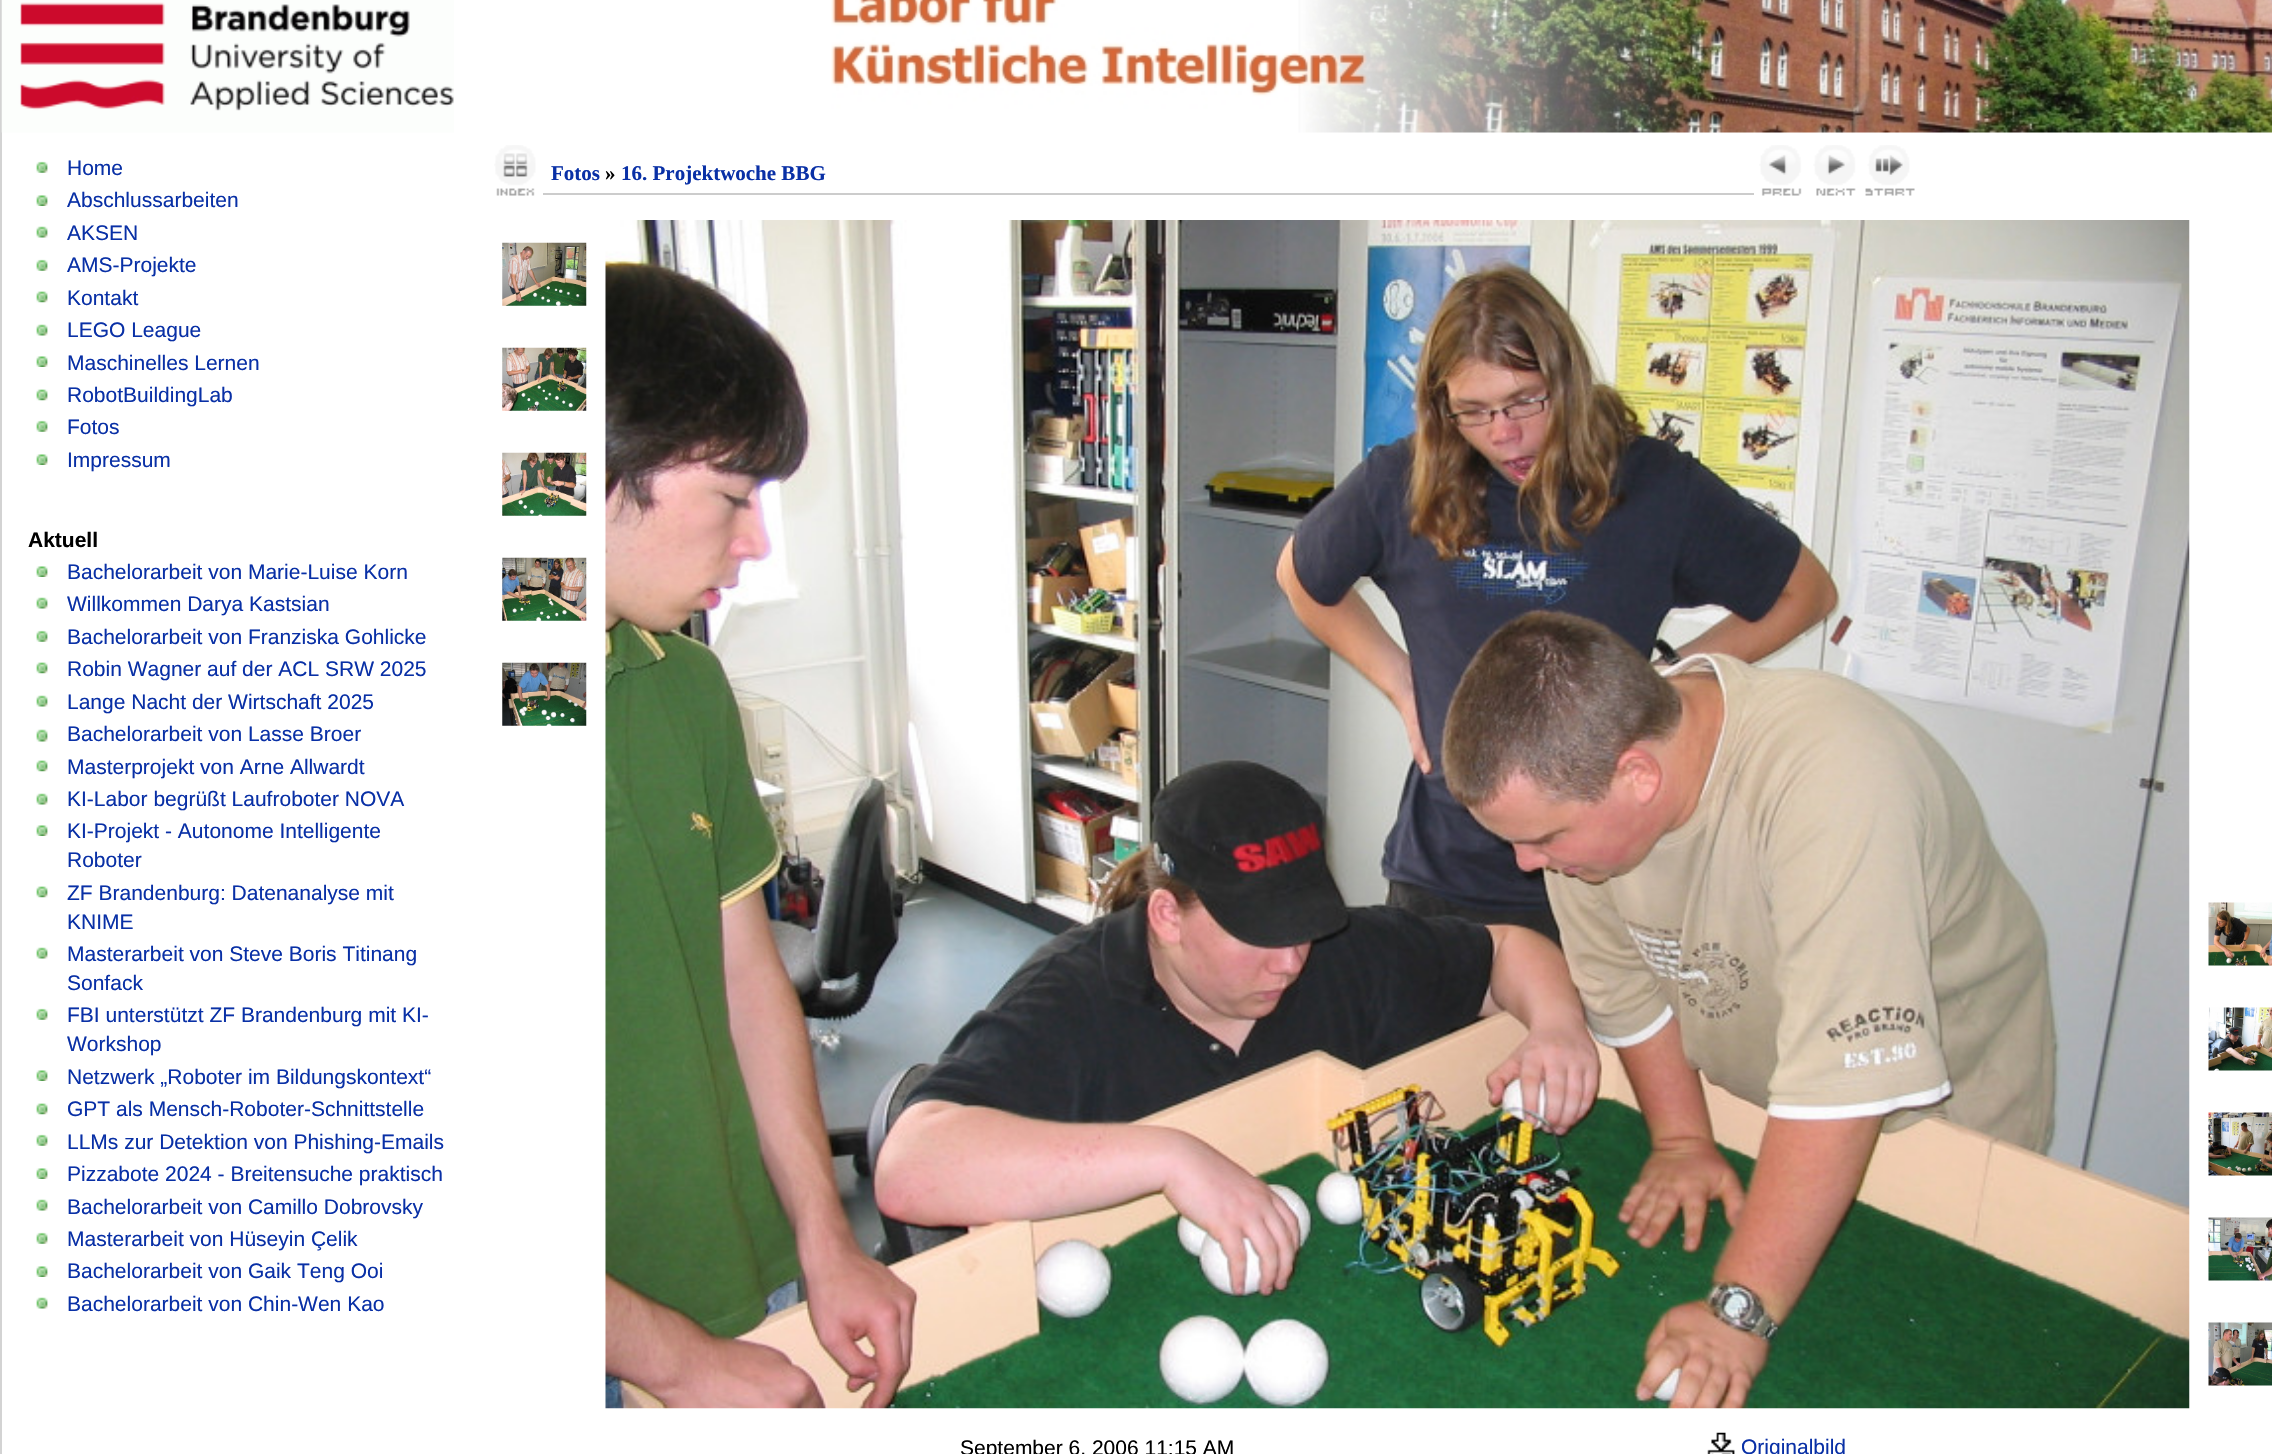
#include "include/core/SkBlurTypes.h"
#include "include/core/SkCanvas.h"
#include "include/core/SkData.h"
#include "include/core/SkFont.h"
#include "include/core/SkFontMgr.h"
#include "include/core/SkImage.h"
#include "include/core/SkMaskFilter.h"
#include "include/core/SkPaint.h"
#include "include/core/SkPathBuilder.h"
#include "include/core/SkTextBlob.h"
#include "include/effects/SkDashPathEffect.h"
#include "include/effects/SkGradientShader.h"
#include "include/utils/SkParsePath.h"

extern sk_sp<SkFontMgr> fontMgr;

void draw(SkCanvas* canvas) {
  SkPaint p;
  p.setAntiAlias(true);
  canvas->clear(SK_ColorWHITE);
  p.setColor(SkColorSetRGB(211, 211, 211));
  canvas->drawRect(SkRect::MakeLTRB(0, 0, 2, 1454), p);
  canvas->drawImageRect(SkImages::DeferredFromEncodedData(SkData::MakeFromFileName("images/1.png")), SkRect::MakeLTRB(831, 0, 2272, 133), SkSamplingOptions());
  canvas->drawImageRect(SkImages::DeferredFromEncodedData(SkData::MakeFromFileName("images/2.png")), SkRect::MakeLTRB(1, 0, 454, 133), SkSamplingOptions());
  canvas->drawImageRect(SkImages::DeferredFromEncodedData(SkData::MakeFromFileName("images/3.png")), SkRect::MakeLTRB(36, 161, 48, 173), SkSamplingOptions());
  canvas->drawImageRect(SkImages::DeferredFromEncodedData(SkData::MakeFromFileName("images/4.png")), SkRect::MakeLTRB(36, 195, 48, 206), SkSamplingOptions());
  canvas->drawImageRect(SkImages::DeferredFromEncodedData(SkData::MakeFromFileName("images/5.png")), SkRect::MakeLTRB(36, 226, 48, 238), SkSamplingOptions());
  canvas->drawImageRect(SkImages::DeferredFromEncodedData(SkData::MakeFromFileName("images/6.png")), SkRect::MakeLTRB(36, 259, 48, 271), SkSamplingOptions());
  canvas->drawImageRect(SkImages::DeferredFromEncodedData(SkData::MakeFromFileName("images/7.png")), SkRect::MakeLTRB(36, 291, 48, 303), SkSamplingOptions());
  canvas->drawImageRect(SkImages::DeferredFromEncodedData(SkData::MakeFromFileName("images/5.png")), SkRect::MakeLTRB(36, 324, 48, 336), SkSamplingOptions());
  canvas->drawImageRect(SkImages::DeferredFromEncodedData(SkData::MakeFromFileName("images/4.png")), SkRect::MakeLTRB(36, 356, 48, 367), SkSamplingOptions());
  canvas->drawImageRect(SkImages::DeferredFromEncodedData(SkData::MakeFromFileName("images/7.png")), SkRect::MakeLTRB(36, 389, 48, 401), SkSamplingOptions());
  canvas->drawImageRect(SkImages::DeferredFromEncodedData(SkData::MakeFromFileName("images/6.png")), SkRect::MakeLTRB(36, 420, 48, 432), SkSamplingOptions());
  canvas->drawImageRect(SkImages::DeferredFromEncodedData(SkData::MakeFromFileName("images/4.png")), SkRect::MakeLTRB(36, 454, 48, 465), SkSamplingOptions());
  canvas->drawImageRect(SkImages::DeferredFromEncodedData(SkData::MakeFromFileName("images/4.png")), SkRect::MakeLTRB(36, 566, 48, 577), SkSamplingOptions());
  canvas->drawImageRect(SkImages::DeferredFromEncodedData(SkData::MakeFromFileName("images/5.png")), SkRect::MakeLTRB(36, 597, 48, 609), SkSamplingOptions());
  canvas->drawImageRect(SkImages::DeferredFromEncodedData(SkData::MakeFromFileName("images/6.png")), SkRect::MakeLTRB(36, 630, 48, 642), SkSamplingOptions());
  canvas->drawImageRect(SkImages::DeferredFromEncodedData(SkData::MakeFromFileName("images/7.png")), SkRect::MakeLTRB(36, 662, 48, 674), SkSamplingOptions());
  canvas->drawImageRect(SkImages::DeferredFromEncodedData(SkData::MakeFromFileName("images/5.png")), SkRect::MakeLTRB(36, 695, 48, 707), SkSamplingOptions());
  canvas->drawImageRect(SkImages::DeferredFromEncodedData(SkData::MakeFromFileName("images/8.png")), SkRect::MakeLTRB(36, 729, 48, 742), SkSamplingOptions());
  canvas->drawImageRect(SkImages::DeferredFromEncodedData(SkData::MakeFromFileName("images/7.png")), SkRect::MakeLTRB(36, 760, 48, 772), SkSamplingOptions());
  canvas->drawImageRect(SkImages::DeferredFromEncodedData(SkData::MakeFromFileName("images/5.png")), SkRect::MakeLTRB(36, 793, 48, 805), SkSamplingOptions());
  canvas->drawImageRect(SkImages::DeferredFromEncodedData(SkData::MakeFromFileName("images/4.png")), SkRect::MakeLTRB(36, 825, 48, 836), SkSamplingOptions());
  canvas->drawImageRect(SkImages::DeferredFromEncodedData(SkData::MakeFromFileName("images/7.png")), SkRect::MakeLTRB(36, 886, 48, 898), SkSamplingOptions());
  canvas->drawImageRect(SkImages::DeferredFromEncodedData(SkData::MakeFromFileName("images/5.png")), SkRect::MakeLTRB(36, 947, 48, 959), SkSamplingOptions());
  canvas->drawImageRect(SkImages::DeferredFromEncodedData(SkData::MakeFromFileName("images/6.png")), SkRect::MakeLTRB(36, 1008, 48, 1020), SkSamplingOptions());
  canvas->drawImageRect(SkImages::DeferredFromEncodedData(SkData::MakeFromFileName("images/4.png")), SkRect::MakeLTRB(36, 1070, 48, 1081), SkSamplingOptions());
  canvas->drawImageRect(SkImages::DeferredFromEncodedData(SkData::MakeFromFileName("images/7.png")), SkRect::MakeLTRB(36, 1103, 48, 1115), SkSamplingOptions());
  canvas->drawImageRect(SkImages::DeferredFromEncodedData(SkData::MakeFromFileName("images/6.png")), SkRect::MakeLTRB(36, 1134, 48, 1146), SkSamplingOptions());
  canvas->drawImageRect(SkImages::DeferredFromEncodedData(SkData::MakeFromFileName("images/4.png")), SkRect::MakeLTRB(36, 1168, 48, 1179), SkSamplingOptions());
  canvas->drawImageRect(SkImages::DeferredFromEncodedData(SkData::MakeFromFileName("images/5.png")), SkRect::MakeLTRB(36, 1199, 48, 1211), SkSamplingOptions());
  canvas->drawImageRect(SkImages::DeferredFromEncodedData(SkData::MakeFromFileName("images/6.png")), SkRect::MakeLTRB(36, 1232, 48, 1244), SkSamplingOptions());
  canvas->drawImageRect(SkImages::DeferredFromEncodedData(SkData::MakeFromFileName("images/4.png")), SkRect::MakeLTRB(36, 1266, 48, 1277), SkSamplingOptions());
  canvas->drawImageRect(SkImages::DeferredFromEncodedData(SkData::MakeFromFileName("images/5.png")), SkRect::MakeLTRB(36, 1297, 48, 1309), SkSamplingOptions());
  canvas->drawImageRect(SkImages::DeferredFromEncodedData(SkData::MakeFromFileName("images/9.png")), SkRect::MakeLTRB(494, 145, 536, 196), SkSamplingOptions());
  p.setColor(SkColorSetRGB(204, 204, 204));
  canvas->drawRect(SkRect::MakeLTRB(543, 193, 1754, 195), p);
  canvas->drawImageRect(SkImages::DeferredFromEncodedData(SkData::MakeFromFileName("images/10.png")), SkRect::MakeLTRB(1759, 145, 1802, 196), SkSamplingOptions());
  canvas->drawImageRect(SkImages::DeferredFromEncodedData(SkData::MakeFromFileName("images/11.png")), SkRect::MakeLTRB(1813, 145, 1856, 196), SkSamplingOptions());
  canvas->drawImageRect(SkImages::DeferredFromEncodedData(SkData::MakeFromFileName("images/12.png")), SkRect::MakeLTRB(1865, 145, 1915, 196), SkSamplingOptions());
  canvas->drawImageRect(SkImages::DeferredFromEncodedData(SkData::MakeFromFileName("images/13.png")), SkRect::MakeLTRB(502, 242, 587, 306), SkSamplingOptions());
  canvas->drawImageRect(SkImages::DeferredFromEncodedData(SkData::MakeFromFileName("images/14.png")), SkRect::MakeLTRB(502, 347, 587, 411), SkSamplingOptions());
  canvas->drawImageRect(SkImages::DeferredFromEncodedData(SkData::MakeFromFileName("images/15.png")), SkRect::MakeLTRB(502, 452, 587, 516), SkSamplingOptions());
  canvas->drawImageRect(SkImages::DeferredFromEncodedData(SkData::MakeFromFileName("images/16.png")), SkRect::MakeLTRB(502, 557, 587, 621), SkSamplingOptions());
  canvas->drawImageRect(SkImages::DeferredFromEncodedData(SkData::MakeFromFileName("images/17.png")), SkRect::MakeLTRB(502, 662, 587, 726), SkSamplingOptions());
  canvas->drawImageRect(SkImages::DeferredFromEncodedData(SkData::MakeFromFileName("images/18.png")), SkRect::MakeLTRB(605, 220, 2190, 1409), SkSamplingOptions());
  canvas->drawImageRect(SkImages::DeferredFromEncodedData(SkData::MakeFromFileName("images/19.png")), SkRect::MakeLTRB(2208, 902, 2272, 966), SkSamplingOptions());
  canvas->drawImageRect(SkImages::DeferredFromEncodedData(SkData::MakeFromFileName("images/20.png")), SkRect::MakeLTRB(2208, 1007, 2272, 1071), SkSamplingOptions());
  canvas->drawImageRect(SkImages::DeferredFromEncodedData(SkData::MakeFromFileName("images/21.png")), SkRect::MakeLTRB(2208, 1112, 2272, 1176), SkSamplingOptions());
  canvas->drawImageRect(SkImages::DeferredFromEncodedData(SkData::MakeFromFileName("images/22.png")), SkRect::MakeLTRB(2208, 1217, 2272, 1281), SkSamplingOptions());
  canvas->drawImageRect(SkImages::DeferredFromEncodedData(SkData::MakeFromFileName("images/23.png")), SkRect::MakeLTRB(2208, 1322, 2272, 1386), SkSamplingOptions());
  canvas->drawImageRect(SkImages::DeferredFromEncodedData(SkData::MakeFromFileName("images/24.png")), SkRect::MakeLTRB(1707, 1432, 1735, 1454), SkSamplingOptions());
  SkFont font1(fontMgr->matchFamilyStyle("Liberation Sans", SkFontStyle::Normal()), 21);
  font1.setSubpixel(true);
  p.setColor(SkColorSetRGB(9, 48, 166));
  canvas->drawString("Home", 67, 175, font1, p);
  canvas->drawString("Abschlussarbeiten", 67, 207, font1, p);
  canvas->drawString("AKSEN", 67, 240, font1, p);
  canvas->drawString("AMS-Projekte", 67, 272, font1, p);
  canvas->drawString("Kontakt", 67, 305, font1, p);
  canvas->drawString("LEGO League", 67, 337, font1, p);
  canvas->drawString("Maschinelles Lernen", 67, 370, font1, p);
  canvas->drawString("RobotBuildingLab", 67, 402, font1, p);
  canvas->drawString("Fotos", 67, 434, font1, p);
  canvas->drawString("Impressum", 67, 467, font1, p);
  SkFont font2(fontMgr->matchFamilyStyle("Liberation Sans", SkFontStyle::Bold()), 21);
  font2.setSubpixel(true);
  p.setColor(SK_ColorBLACK);
  canvas->drawString("Aktuell", 28, 547, font2, p);
  p.setColor(SkColorSetRGB(9, 48, 166));
  canvas->drawString("Bachelorarbeit von Marie-Luise Korn", 67, 579, font1, p);
  canvas->drawString("Willkommen Darya Kastsian", 67, 611, font1, p);
  canvas->drawString("Bachelorarbeit von Franziska Gohlicke", 67, 644, font1, p);
  canvas->drawString("Robin Wagner auf der ACL SRW 2025", 67, 676, font1, p);
  canvas->drawString("Lange Nacht der Wirtschaft 2025", 67, 709, font1, p);
  canvas->drawString("Bachelorarbeit von Lasse Broer", 67, 741, font1, p);
  canvas->drawString("Masterprojekt von Arne Allwardt", 67, 774, font1, p);
  canvas->drawString("KI-Labor begrüßt Laufroboter NOVA", 67, 806, font1, p);
  canvas->drawString("KI-Projekt - Autonome Intelligente", 67, 838, font1, p);
  canvas->drawString("Roboter", 67, 867, font1, p);
  canvas->drawString("ZF Brandenburg: Datenanalyse mit", 67, 900, font1, p);
  canvas->drawString("KNIME", 67, 929, font1, p);
  canvas->drawString("Masterarbeit von Steve Boris Titinang", 67, 961, font1, p);
  canvas->drawString("Sonfack", 67, 990, font1, p);
  canvas->drawString("FBI unterstützt ZF Brandenburg mit KI-", 67, 1022, font1, p);
  canvas->drawString("Workshop", 67, 1051, font1, p);
  canvas->drawString("Netzwerk „Roboter im Bildungskontext“", 67, 1084, font1, p);
  canvas->drawString("GPT als Mensch-Roboter-Schnittstelle", 67, 1116, font1, p);
  canvas->drawString("LLMs zur Detektion von Phishing-Emails", 67, 1149, font1, p);
  canvas->drawString("Pizzabote 2024 - Breitensuche praktisch", 67, 1181, font1, p);
  canvas->drawString("Bachelorarbeit von Camillo Dobrovsky", 67, 1214, font1, p);
  canvas->drawString("Masterarbeit von Hüseyin Çelik", 67, 1246, font1, p);
  canvas->drawString("Bachelorarbeit von Gaik Teng Ooi", 67, 1278, font1, p);
  canvas->drawString("Bachelorarbeit von Chin-Wen Kao", 67, 1311, font1, p);
  SkFont font3(fontMgr->matchFamilyStyle("Liberation Serif", SkFontStyle::Bold()), 21);
  font3.setSubpixel(true);
  canvas->drawString("Fotos", 551, 180, font3, p);
  p.setColor(SK_ColorBLACK);
  canvas->drawString("»", 605, 180, font3, p);
  p.setColor(SkColorSetRGB(9, 48, 166));
  canvas->drawString("16. Projektwoche BBG", 621, 180, font3, p);
  p.setColor(SK_ColorBLACK);
  canvas->drawString("September 6, 2006 11:15 AM", 960, 1455, font1, p);
  p.setColor(SkColorSetRGB(9, 48, 166));
  canvas->drawString("Originalbild", 1741, 1454, font1, p);
}
